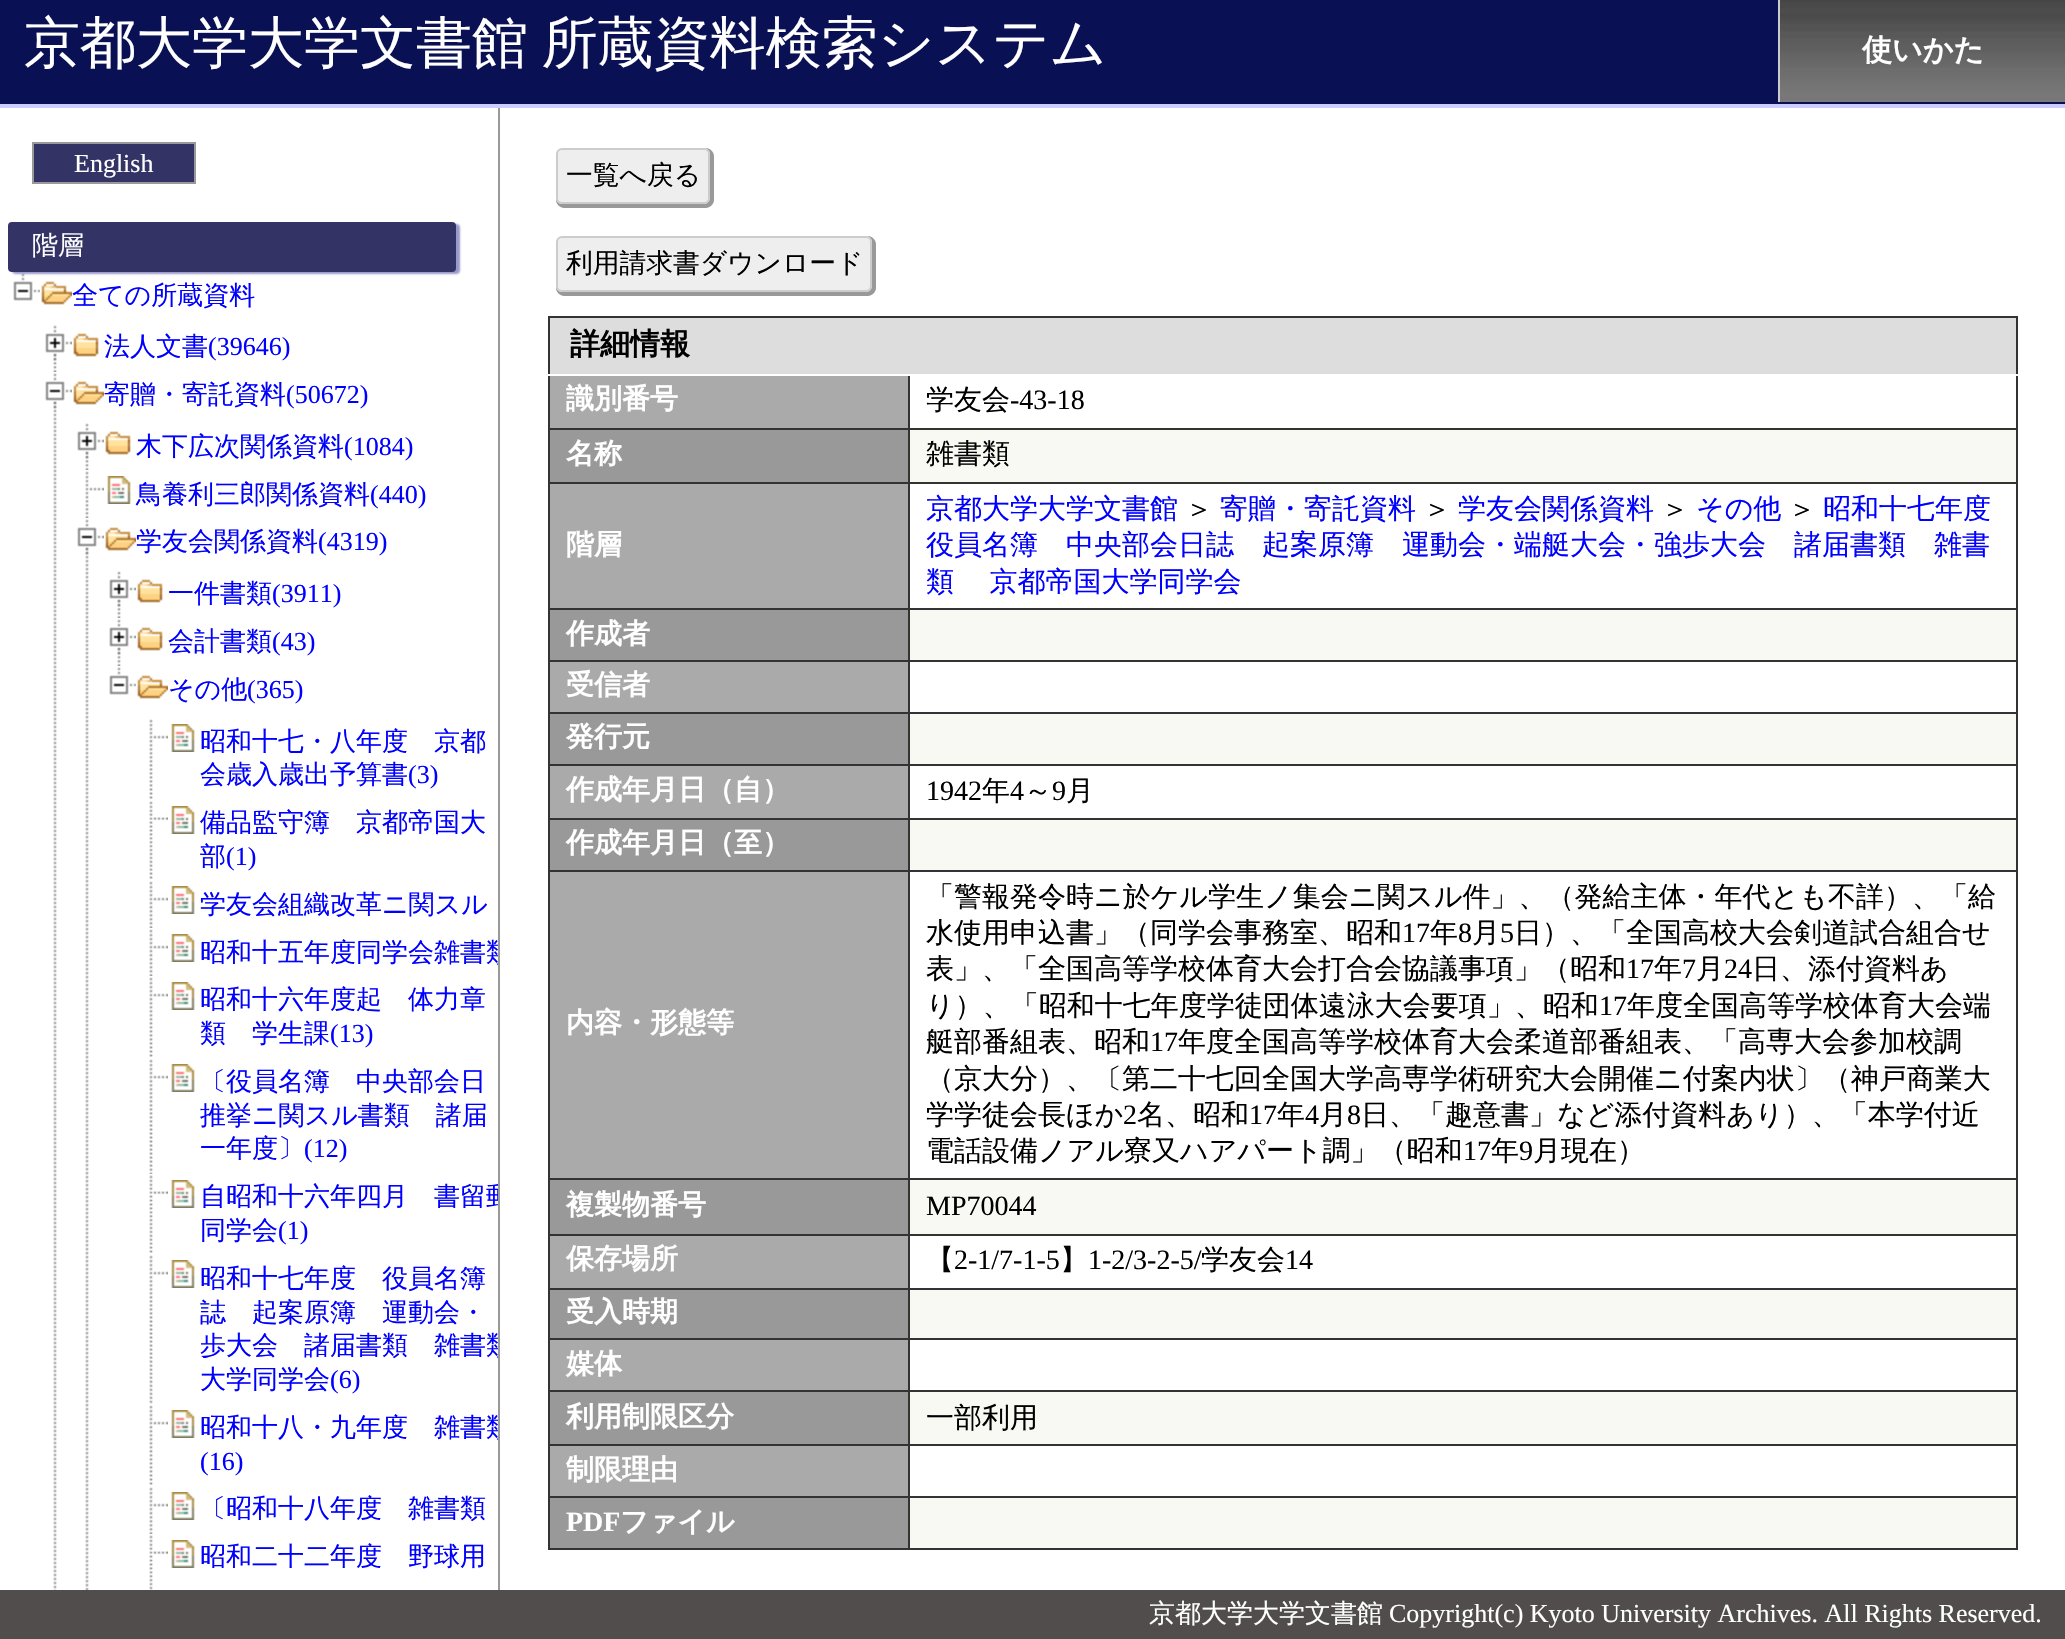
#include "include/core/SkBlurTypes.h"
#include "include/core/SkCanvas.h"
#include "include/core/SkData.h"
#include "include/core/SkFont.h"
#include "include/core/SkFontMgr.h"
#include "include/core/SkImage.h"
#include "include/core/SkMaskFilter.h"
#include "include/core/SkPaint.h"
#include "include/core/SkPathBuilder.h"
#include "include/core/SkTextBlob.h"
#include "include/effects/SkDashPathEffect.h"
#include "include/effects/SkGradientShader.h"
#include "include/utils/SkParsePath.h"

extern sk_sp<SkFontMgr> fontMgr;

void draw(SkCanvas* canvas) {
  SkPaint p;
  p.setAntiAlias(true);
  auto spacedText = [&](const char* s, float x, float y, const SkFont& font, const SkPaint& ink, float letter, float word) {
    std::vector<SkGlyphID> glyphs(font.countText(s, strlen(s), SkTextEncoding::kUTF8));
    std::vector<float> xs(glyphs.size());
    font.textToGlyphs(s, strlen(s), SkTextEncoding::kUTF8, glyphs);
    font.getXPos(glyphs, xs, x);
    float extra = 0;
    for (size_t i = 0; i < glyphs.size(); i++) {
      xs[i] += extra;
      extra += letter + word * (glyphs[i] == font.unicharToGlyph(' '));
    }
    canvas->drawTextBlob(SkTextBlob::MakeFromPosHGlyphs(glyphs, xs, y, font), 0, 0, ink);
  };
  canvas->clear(SK_ColorWHITE);
  p.setColor(SkColorSetRGB(10, 16, 84));
  canvas->drawRect(SkRect::MakeLTRB(0, 0, 2065, 104), p);
  p.setColor(SkColorSetRGB(204, 204, 255));
  canvas->drawRect(SkRect::MakeLTRB(0, 104, 2065, 108), p);
  canvas->drawImageRect(SkImages::DeferredFromEncodedData(SkData::MakeFromFileName("images/1.png")), SkRect::MakeLTRB(1780, 0, 2065, 102), SkSamplingOptions());
  p.setColor(SkColorSetRGB(204, 204, 204));
  canvas->drawRect(SkRect::MakeLTRB(1778, 0, 1780, 102), p);
  p.setColor(SkColorSetRGB(153, 153, 153));
  canvas->drawRect(SkRect::MakeLTRB(498, 108, 500, 1590), p);
  p.setColor(SkColorSetRGB(51, 51, 102));
  canvas->drawRect(SkRect::MakeLTRB(33, 143, 195, 183), p);
  p.setStyle(SkPaint::kStroke_Style);
  p.setStrokeWidth(2);
  p.setColor(SkColorSetRGB(153, 153, 153));
  canvas->drawRect(SkRect::MakeLTRB(33, 143, 195, 183), p);
  p.setStyle(SkPaint::kFill_Style);
  p.setColor(SkColorSetRGB(153, 153, 204));
  p.setMaskFilter(SkMaskFilter::MakeBlur(kNormal_SkBlurStyle, 1));
  canvas->drawRoundRect(SkRect::MakeLTRB(12, 224, 460, 274), 4, 4, p);
  p.setMaskFilter(nullptr);
  p.setColor(SkColorSetRGB(51, 51, 102));
  canvas->drawRoundRect(SkRect::MakeLTRB(8, 222, 456, 272), 4, 4, p);
  canvas->drawImageRect(SkImages::DeferredFromEncodedData(SkData::MakeFromFileName("images/2.png")), SkRect::MakeLTRB(13, 273, 40, 301), SkSamplingOptions());
  canvas->drawImageRect(SkImages::DeferredFromEncodedData(SkData::MakeFromFileName("images/3.png")), SkRect::MakeLTRB(40, 281, 72, 305), SkSamplingOptions());
  canvas->drawImageRect(SkImages::DeferredFromEncodedData(SkData::MakeFromFileName("images/4.png")), SkRect::MakeLTRB(53, 325, 57, 372), SkSamplingOptions());
  canvas->drawImageRect(SkImages::DeferredFromEncodedData(SkData::MakeFromFileName("images/5.png")), SkRect::MakeLTRB(45, 333, 72, 361), SkSamplingOptions());
  canvas->drawImageRect(SkImages::DeferredFromEncodedData(SkData::MakeFromFileName("images/6.png")), SkRect::MakeLTRB(73, 333, 99, 357), SkSamplingOptions());
  canvas->drawImageRect(SkImages::DeferredFromEncodedData(SkData::MakeFromFileName("images/7.png")), SkRect::MakeLTRB(53, 373, 57, 1590), SkSamplingOptions());
  canvas->drawImageRect(SkImages::DeferredFromEncodedData(SkData::MakeFromFileName("images/8.png")), SkRect::MakeLTRB(45, 381, 72, 409), SkSamplingOptions());
  canvas->drawImageRect(SkImages::DeferredFromEncodedData(SkData::MakeFromFileName("images/9.png")), SkRect::MakeLTRB(73, 381, 104, 405), SkSamplingOptions());
  canvas->drawImageRect(SkImages::DeferredFromEncodedData(SkData::MakeFromFileName("images/4.png")), SkRect::MakeLTRB(85, 423, 89, 470), SkSamplingOptions());
  canvas->drawImageRect(SkImages::DeferredFromEncodedData(SkData::MakeFromFileName("images/5.png")), SkRect::MakeLTRB(77, 431, 104, 459), SkSamplingOptions());
  canvas->drawImageRect(SkImages::DeferredFromEncodedData(SkData::MakeFromFileName("images/6.png")), SkRect::MakeLTRB(105, 431, 131, 455), SkSamplingOptions());
  canvas->drawImageRect(SkImages::DeferredFromEncodedData(SkData::MakeFromFileName("images/10.png")), SkRect::MakeLTRB(85, 471, 104, 518), SkSamplingOptions());
  canvas->drawImageRect(SkImages::DeferredFromEncodedData(SkData::MakeFromFileName("images/11.png")), SkRect::MakeLTRB(107, 476, 131, 504), SkSamplingOptions());
  canvas->drawImageRect(SkImages::DeferredFromEncodedData(SkData::MakeFromFileName("images/12.png")), SkRect::MakeLTRB(85, 519, 89, 1590), SkSamplingOptions());
  canvas->drawImageRect(SkImages::DeferredFromEncodedData(SkData::MakeFromFileName("images/13.png")), SkRect::MakeLTRB(77, 527, 104, 555), SkSamplingOptions());
  canvas->drawImageRect(SkImages::DeferredFromEncodedData(SkData::MakeFromFileName("images/9.png")), SkRect::MakeLTRB(105, 527, 136, 551), SkSamplingOptions());
  canvas->drawImageRect(SkImages::DeferredFromEncodedData(SkData::MakeFromFileName("images/4.png")), SkRect::MakeLTRB(117, 571, 121, 618), SkSamplingOptions());
  canvas->drawImageRect(SkImages::DeferredFromEncodedData(SkData::MakeFromFileName("images/5.png")), SkRect::MakeLTRB(109, 579, 136, 607), SkSamplingOptions());
  canvas->drawImageRect(SkImages::DeferredFromEncodedData(SkData::MakeFromFileName("images/6.png")), SkRect::MakeLTRB(137, 579, 163, 603), SkSamplingOptions());
  canvas->drawImageRect(SkImages::DeferredFromEncodedData(SkData::MakeFromFileName("images/4.png")), SkRect::MakeLTRB(117, 619, 121, 666), SkSamplingOptions());
  canvas->drawImageRect(SkImages::DeferredFromEncodedData(SkData::MakeFromFileName("images/5.png")), SkRect::MakeLTRB(109, 627, 136, 655), SkSamplingOptions());
  canvas->drawImageRect(SkImages::DeferredFromEncodedData(SkData::MakeFromFileName("images/6.png")), SkRect::MakeLTRB(137, 627, 163, 651), SkSamplingOptions());
  canvas->drawImageRect(SkImages::DeferredFromEncodedData(SkData::MakeFromFileName("images/14.png")), SkRect::MakeLTRB(109, 667, 136, 695), SkSamplingOptions());
  canvas->drawImageRect(SkImages::DeferredFromEncodedData(SkData::MakeFromFileName("images/3.png")), SkRect::MakeLTRB(136, 675, 168, 699), SkSamplingOptions());
  canvas->drawImageRect(SkImages::DeferredFromEncodedData(SkData::MakeFromFileName("images/15.png")), SkRect::MakeLTRB(149, 719, 168, 799), SkSamplingOptions());
  canvas->drawImageRect(SkImages::DeferredFromEncodedData(SkData::MakeFromFileName("images/11.png")), SkRect::MakeLTRB(171, 724, 195, 752), SkSamplingOptions());
  canvas->drawImageRect(SkImages::DeferredFromEncodedData(SkData::MakeFromFileName("images/16.png")), SkRect::MakeLTRB(149, 801, 168, 879), SkSamplingOptions());
  canvas->drawImageRect(SkImages::DeferredFromEncodedData(SkData::MakeFromFileName("images/11.png")), SkRect::MakeLTRB(171, 806, 195, 834), SkSamplingOptions());
  canvas->drawImageRect(SkImages::DeferredFromEncodedData(SkData::MakeFromFileName("images/10.png")), SkRect::MakeLTRB(149, 881, 168, 928), SkSamplingOptions());
  canvas->drawImageRect(SkImages::DeferredFromEncodedData(SkData::MakeFromFileName("images/11.png")), SkRect::MakeLTRB(171, 886, 195, 914), SkSamplingOptions());
  canvas->drawImageRect(SkImages::DeferredFromEncodedData(SkData::MakeFromFileName("images/10.png")), SkRect::MakeLTRB(149, 929, 168, 976), SkSamplingOptions());
  canvas->drawImageRect(SkImages::DeferredFromEncodedData(SkData::MakeFromFileName("images/11.png")), SkRect::MakeLTRB(171, 934, 195, 962), SkSamplingOptions());
  canvas->drawImageRect(SkImages::DeferredFromEncodedData(SkData::MakeFromFileName("images/15.png")), SkRect::MakeLTRB(149, 977, 168, 1057), SkSamplingOptions());
  canvas->drawImageRect(SkImages::DeferredFromEncodedData(SkData::MakeFromFileName("images/11.png")), SkRect::MakeLTRB(171, 982, 195, 1010), SkSamplingOptions());
  canvas->drawImageRect(SkImages::DeferredFromEncodedData(SkData::MakeFromFileName("images/17.png")), SkRect::MakeLTRB(149, 1059, 168, 1174), SkSamplingOptions());
  canvas->drawImageRect(SkImages::DeferredFromEncodedData(SkData::MakeFromFileName("images/11.png")), SkRect::MakeLTRB(171, 1064, 195, 1092), SkSamplingOptions());
  canvas->drawImageRect(SkImages::DeferredFromEncodedData(SkData::MakeFromFileName("images/16.png")), SkRect::MakeLTRB(149, 1175, 168, 1253), SkSamplingOptions());
  canvas->drawImageRect(SkImages::DeferredFromEncodedData(SkData::MakeFromFileName("images/11.png")), SkRect::MakeLTRB(171, 1180, 195, 1208), SkSamplingOptions());
  canvas->drawImageRect(SkImages::DeferredFromEncodedData(SkData::MakeFromFileName("images/18.png")), SkRect::MakeLTRB(149, 1255, 168, 1404), SkSamplingOptions());
  canvas->drawImageRect(SkImages::DeferredFromEncodedData(SkData::MakeFromFileName("images/11.png")), SkRect::MakeLTRB(171, 1260, 195, 1288), SkSamplingOptions());
  canvas->drawImageRect(SkImages::DeferredFromEncodedData(SkData::MakeFromFileName("images/15.png")), SkRect::MakeLTRB(149, 1405, 168, 1485), SkSamplingOptions());
  canvas->drawImageRect(SkImages::DeferredFromEncodedData(SkData::MakeFromFileName("images/11.png")), SkRect::MakeLTRB(171, 1410, 195, 1438), SkSamplingOptions());
  canvas->drawImageRect(SkImages::DeferredFromEncodedData(SkData::MakeFromFileName("images/10.png")), SkRect::MakeLTRB(149, 1487, 168, 1534), SkSamplingOptions());
  canvas->drawImageRect(SkImages::DeferredFromEncodedData(SkData::MakeFromFileName("images/11.png")), SkRect::MakeLTRB(171, 1492, 195, 1520), SkSamplingOptions());
  canvas->drawImageRect(SkImages::DeferredFromEncodedData(SkData::MakeFromFileName("images/19.png")), SkRect::MakeLTRB(149, 1535, 168, 1590), SkSamplingOptions());
  canvas->drawImageRect(SkImages::DeferredFromEncodedData(SkData::MakeFromFileName("images/11.png")), SkRect::MakeLTRB(171, 1540, 195, 1568), SkSamplingOptions());
  p.setColor(SkColorSetRGB(153, 153, 153));
  canvas->drawPath(SkPathBuilder().moveTo(706, 148).lineTo(704, 148).cubicTo(707, 148, 710, 151, 710, 154).lineTo(710, 198).cubicTo(710, 201, 707, 204, 704, 204).lineTo(562, 204).cubicTo(559, 204, 556, 201, 556, 198).lineTo(556, 200).cubicTo(556, 204, 560, 208, 564, 208).lineTo(706, 208).cubicTo(710, 208, 714, 204, 714, 200).lineTo(714, 156).cubicTo(714, 152, 710, 148, 706, 148).close().detach(), p);
  p.setColor(SkColorSetRGB(238, 238, 238));
  canvas->drawRoundRect(SkRect::MakeLTRB(557, 149, 709, 203), 5, 5, p);
  p.setStyle(SkPaint::kStroke_Style);
  p.setColor(SkColorSetRGB(204, 204, 204));
  canvas->drawRoundRect(SkRect::MakeLTRB(557, 149, 709, 203), 5, 5, p);
  p.setStyle(SkPaint::kFill_Style);
  p.setColor(SkColorSetRGB(153, 153, 153));
  canvas->drawPath(SkPathBuilder().moveTo(868, 236).lineTo(866, 236).cubicTo(869, 236, 872, 239, 872, 242).lineTo(872, 286).cubicTo(872, 289, 869, 292, 866, 292).lineTo(562, 292).cubicTo(559, 292, 556, 289, 556, 286).lineTo(556, 288).cubicTo(556, 292, 560, 296, 564, 296).lineTo(868, 296).cubicTo(872, 296, 876, 292, 876, 288).lineTo(876, 244).cubicTo(876, 240, 872, 236, 868, 236).close().detach(), p);
  p.setColor(SkColorSetRGB(238, 238, 238));
  canvas->drawRoundRect(SkRect::MakeLTRB(557, 237, 871, 291), 5, 5, p);
  p.setStyle(SkPaint::kStroke_Style);
  p.setColor(SkColorSetRGB(204, 204, 204));
  canvas->drawRoundRect(SkRect::MakeLTRB(557, 237, 871, 291), 5, 5, p);
  p.setStyle(SkPaint::kFill_Style);
  p.setColor(SkColorSetRGB(221, 221, 221));
  canvas->drawRect(SkRect::MakeLTRB(550, 318, 2016, 374), p);
  p.setColor(SkColorSetRGB(51, 51, 51));
  canvas->drawRect(SkRect::MakeLTRB(548, 316, 2018, 318), p);
  canvas->drawRect(SkRect::MakeLTRB(2016, 316, 2018, 374), p);
  canvas->drawRect(SkRect::MakeLTRB(548, 316, 550, 374), p);
  p.setColor(SkColorSetRGB(170, 170, 170));
  canvas->drawRect(SkRect::MakeLTRB(550, 376, 908, 428), p);
  p.setColor(SkColorSetRGB(51, 51, 51));
  canvas->drawRect(SkRect::MakeLTRB(548, 428, 908, 430), p);
  canvas->drawRect(SkRect::MakeLTRB(548, 376, 550, 430), p);
  canvas->drawRect(SkRect::MakeLTRB(2016, 376, 2018, 1550), p);
  canvas->drawRect(SkRect::MakeLTRB(908, 428, 2018, 430), p);
  canvas->drawRect(SkRect::MakeLTRB(908, 376, 910, 430), p);
  p.setColor(SkColorSetRGB(153, 153, 153));
  canvas->drawRect(SkRect::MakeLTRB(550, 430, 908, 482), p);
  p.setColor(SkColorSetRGB(51, 51, 51));
  canvas->drawRect(SkRect::MakeLTRB(548, 482, 2018, 484), p);
  canvas->drawRect(SkRect::MakeLTRB(548, 430, 550, 484), p);
  p.setColor(SkColorSetRGB(249, 249, 244));
  canvas->drawRect(SkRect::MakeLTRB(910, 430, 2016, 482), p);
  p.setColor(SkColorSetRGB(51, 51, 51));
  canvas->drawRect(SkRect::MakeLTRB(908, 430, 910, 484), p);
  p.setColor(SkColorSetRGB(170, 170, 170));
  canvas->drawRect(SkRect::MakeLTRB(550, 484, 908, 608), p);
  p.setColor(SkColorSetRGB(51, 51, 51));
  canvas->drawRect(SkRect::MakeLTRB(548, 608, 2018, 610), p);
  canvas->drawRect(SkRect::MakeLTRB(548, 484, 550, 610), p);
  canvas->drawRect(SkRect::MakeLTRB(908, 484, 910, 610), p);
  p.setColor(SkColorSetRGB(153, 153, 153));
  canvas->drawRect(SkRect::MakeLTRB(550, 610, 908, 660), p);
  p.setColor(SkColorSetRGB(51, 51, 51));
  canvas->drawRect(SkRect::MakeLTRB(548, 660, 2018, 662), p);
  canvas->drawRect(SkRect::MakeLTRB(548, 610, 550, 662), p);
  p.setColor(SkColorSetRGB(249, 249, 244));
  canvas->drawRect(SkRect::MakeLTRB(910, 610, 2016, 660), p);
  p.setColor(SkColorSetRGB(51, 51, 51));
  canvas->drawRect(SkRect::MakeLTRB(908, 610, 910, 662), p);
  p.setColor(SkColorSetRGB(170, 170, 170));
  canvas->drawRect(SkRect::MakeLTRB(550, 662, 908, 712), p);
  p.setColor(SkColorSetRGB(51, 51, 51));
  canvas->drawRect(SkRect::MakeLTRB(548, 712, 2018, 714), p);
  canvas->drawRect(SkRect::MakeLTRB(548, 662, 550, 714), p);
  canvas->drawRect(SkRect::MakeLTRB(908, 662, 910, 714), p);
  p.setColor(SkColorSetRGB(153, 153, 153));
  canvas->drawRect(SkRect::MakeLTRB(550, 714, 908, 764), p);
  p.setColor(SkColorSetRGB(51, 51, 51));
  canvas->drawRect(SkRect::MakeLTRB(548, 764, 2018, 766), p);
  canvas->drawRect(SkRect::MakeLTRB(548, 714, 550, 766), p);
  p.setColor(SkColorSetRGB(249, 249, 244));
  canvas->drawRect(SkRect::MakeLTRB(910, 714, 2016, 764), p);
  p.setColor(SkColorSetRGB(51, 51, 51));
  canvas->drawRect(SkRect::MakeLTRB(908, 714, 910, 766), p);
  p.setColor(SkColorSetRGB(170, 170, 170));
  canvas->drawRect(SkRect::MakeLTRB(550, 766, 908, 818), p);
  p.setColor(SkColorSetRGB(51, 51, 51));
  canvas->drawRect(SkRect::MakeLTRB(548, 818, 2018, 820), p);
  canvas->drawRect(SkRect::MakeLTRB(548, 766, 550, 820), p);
  canvas->drawRect(SkRect::MakeLTRB(908, 766, 910, 820), p);
  p.setColor(SkColorSetRGB(153, 153, 153));
  canvas->drawRect(SkRect::MakeLTRB(550, 820, 908, 870), p);
  p.setColor(SkColorSetRGB(51, 51, 51));
  canvas->drawRect(SkRect::MakeLTRB(548, 870, 2018, 872), p);
  canvas->drawRect(SkRect::MakeLTRB(548, 820, 550, 872), p);
  p.setColor(SkColorSetRGB(249, 249, 244));
  canvas->drawRect(SkRect::MakeLTRB(910, 820, 2016, 870), p);
  p.setColor(SkColorSetRGB(51, 51, 51));
  canvas->drawRect(SkRect::MakeLTRB(908, 820, 910, 872), p);
  p.setColor(SkColorSetRGB(170, 170, 170));
  canvas->drawRect(SkRect::MakeLTRB(550, 872, 908, 1178), p);
  p.setColor(SkColorSetRGB(51, 51, 51));
  canvas->drawRect(SkRect::MakeLTRB(548, 1178, 2018, 1180), p);
  canvas->drawRect(SkRect::MakeLTRB(548, 872, 550, 1180), p);
  canvas->drawRect(SkRect::MakeLTRB(908, 872, 910, 1180), p);
  p.setColor(SkColorSetRGB(153, 153, 153));
  canvas->drawRect(SkRect::MakeLTRB(550, 1180, 908, 1234), p);
  p.setColor(SkColorSetRGB(51, 51, 51));
  canvas->drawRect(SkRect::MakeLTRB(548, 1234, 2018, 1236), p);
  canvas->drawRect(SkRect::MakeLTRB(548, 1180, 550, 1236), p);
  p.setColor(SkColorSetRGB(249, 249, 244));
  canvas->drawRect(SkRect::MakeLTRB(910, 1180, 2016, 1234), p);
  p.setColor(SkColorSetRGB(51, 51, 51));
  canvas->drawRect(SkRect::MakeLTRB(908, 1180, 910, 1236), p);
  p.setColor(SkColorSetRGB(170, 170, 170));
  canvas->drawRect(SkRect::MakeLTRB(550, 1236, 908, 1288), p);
  p.setColor(SkColorSetRGB(51, 51, 51));
  canvas->drawRect(SkRect::MakeLTRB(548, 1288, 2018, 1290), p);
  canvas->drawRect(SkRect::MakeLTRB(548, 1236, 550, 1290), p);
  canvas->drawRect(SkRect::MakeLTRB(908, 1236, 910, 1290), p);
  p.setColor(SkColorSetRGB(153, 153, 153));
  canvas->drawRect(SkRect::MakeLTRB(550, 1290, 908, 1338), p);
  p.setColor(SkColorSetRGB(51, 51, 51));
  canvas->drawRect(SkRect::MakeLTRB(548, 1338, 2018, 1340), p);
  canvas->drawRect(SkRect::MakeLTRB(548, 1290, 550, 1340), p);
  p.setColor(SkColorSetRGB(249, 249, 244));
  canvas->drawRect(SkRect::MakeLTRB(910, 1290, 2016, 1338), p);
  p.setColor(SkColorSetRGB(51, 51, 51));
  canvas->drawRect(SkRect::MakeLTRB(908, 1290, 910, 1340), p);
  p.setColor(SkColorSetRGB(170, 170, 170));
  canvas->drawRect(SkRect::MakeLTRB(550, 1340, 908, 1390), p);
  p.setColor(SkColorSetRGB(51, 51, 51));
  canvas->drawRect(SkRect::MakeLTRB(548, 1390, 2018, 1392), p);
  canvas->drawRect(SkRect::MakeLTRB(548, 1340, 550, 1392), p);
  canvas->drawRect(SkRect::MakeLTRB(908, 1340, 910, 1392), p);
  p.setColor(SkColorSetRGB(153, 153, 153));
  canvas->drawRect(SkRect::MakeLTRB(550, 1392, 908, 1444), p);
  p.setColor(SkColorSetRGB(51, 51, 51));
  canvas->drawRect(SkRect::MakeLTRB(548, 1444, 2018, 1446), p);
  canvas->drawRect(SkRect::MakeLTRB(548, 1392, 550, 1446), p);
  p.setColor(SkColorSetRGB(249, 249, 244));
  canvas->drawRect(SkRect::MakeLTRB(910, 1392, 2016, 1444), p);
  p.setColor(SkColorSetRGB(51, 51, 51));
  canvas->drawRect(SkRect::MakeLTRB(908, 1392, 910, 1446), p);
  p.setColor(SkColorSetRGB(170, 170, 170));
  canvas->drawRect(SkRect::MakeLTRB(550, 1446, 908, 1496), p);
  p.setColor(SkColorSetRGB(51, 51, 51));
  canvas->drawRect(SkRect::MakeLTRB(548, 1496, 2018, 1498), p);
  canvas->drawRect(SkRect::MakeLTRB(548, 1446, 550, 1498), p);
  canvas->drawRect(SkRect::MakeLTRB(908, 1446, 910, 1498), p);
  p.setColor(SkColorSetRGB(153, 153, 153));
  canvas->drawRect(SkRect::MakeLTRB(550, 1498, 908, 1548), p);
  p.setColor(SkColorSetRGB(51, 51, 51));
  canvas->drawRect(SkRect::MakeLTRB(548, 1548, 2018, 1550), p);
  canvas->drawRect(SkRect::MakeLTRB(548, 1498, 550, 1550), p);
  p.setColor(SkColorSetRGB(249, 249, 244));
  canvas->drawRect(SkRect::MakeLTRB(910, 1498, 2016, 1548), p);
  p.setColor(SkColorSetRGB(51, 51, 51));
  canvas->drawRect(SkRect::MakeLTRB(908, 1498, 910, 1550), p);
  p.setColor(SkColorSetRGB(80, 77, 76));
  canvas->drawRect(SkRect::MakeLTRB(0, 1590, 2065, 1639), p);
  SkFont font1(fontMgr->matchFamilyStyle("WenQuanYi Zen Hei", SkFontStyle(500, SkFontStyle::kNormal_Width, SkFontStyle::kUpright_Slant)), 56);
  font1.setSubpixel(true);
  p.setColor(SK_ColorWHITE);
  spacedText("京都大学大学文書館 所蔵資料検索システム", 24, 62, font1, p, 0, -3);
  SkFont font2(fontMgr->matchFamilyStyle("WenQuanYi Zen Hei", SkFontStyle::Bold()), 30);
  font2.setSubpixel(true);
  canvas->drawString("使いかた", 1862, 60, font2, p);
  SkFont font3(fontMgr->matchFamilyStyle("Liberation Serif", SkFontStyle::Normal()), 26);
  font3.setSubpixel(true);
  canvas->drawString("English", 74, 172, font3, p);
  SkFont font4(fontMgr->matchFamilyStyle("WenQuanYi Zen Hei", SkFontStyle(500, SkFontStyle::kNormal_Width, SkFontStyle::kUpright_Slant)), 26);
  font4.setSubpixel(true);
  canvas->drawString("階層", 32, 254, font4, p);
  p.setColor(SkColorSetRGB(0, 0, 255));
  canvas->drawString("全ての所蔵資料", 72, 304, font4, p);
  canvas->drawString("法人文書", 104, 355, font4, p);
  canvas->drawString("(39646)", 208, 355, font3, p);
  canvas->drawString("寄贈・寄託資料", 104, 403, font4, p);
  canvas->drawString("(50672)", 286, 403, font3, p);
  canvas->drawString("木下広次関係資料", 136, 455, font4, p);
  canvas->drawString("(1084)", 344, 455, font3, p);
  canvas->drawString("鳥養利三郎関係資料", 136, 503, font4, p);
  canvas->drawString("(440)", 370, 503, font3, p);
  canvas->drawString("学友会関係資料", 136, 550, font4, p);
  canvas->drawString("(4319)", 318, 550, font3, p);
  canvas->drawString("一件書類", 168, 602, font4, p);
  canvas->drawString("(3911)", 272, 602, font3, p);
  canvas->drawString("会計書類", 168, 650, font4, p);
  canvas->drawString("(43)", 272, 650, font3, p);
  canvas->drawString("その他", 168, 698, font4, p);
  canvas->drawString("(365)", 247, 698, font3, p);
  canvas->drawString("昭和十七・八年度　京都", 200, 750, font4, p);
  canvas->drawString("会歳入歳出予算書", 200, 783, font4, p);
  canvas->drawString("(3)", 408, 783, font3, p);
  canvas->drawString("備品監守簿　京都帝国大", 200, 831, font4, p);
  canvas->drawString("部", 200, 865, font4, p);
  canvas->drawString("(1)", 226, 865, font3, p);
  canvas->drawString("学友会組織改革ニ関スル", 200, 913, font4, p);
  canvas->save();
  canvas->clipRect(SkRect::MakeLTRB(0, 108, 498, 1590));
  canvas->drawString("昭和十五年度同学会雑書類", 200, 961, font4, p);
  canvas->restore();
  canvas->drawString("昭和十六年度起　体力章", 200, 1008, font4, p);
  canvas->drawString("類　学生課", 200, 1042, font4, p);
  canvas->drawString("(13)", 330, 1042, font3, p);
  canvas->drawString("〔役員名簿　中央部会日", 200, 1090, font4, p);
  canvas->drawString("推挙ニ関スル書類　諸届", 200, 1124, font4, p);
  canvas->drawString("一年度〕", 200, 1157, font4, p);
  canvas->drawString("(12)", 304, 1157, font3, p);
  canvas->save();
  canvas->clipRect(SkRect::MakeLTRB(0, 108, 498, 1590));
  canvas->drawString("自昭和十六年四月　書留郵", 200, 1205, font4, p);
  canvas->restore();
  canvas->drawString("同学会", 200, 1239, font4, p);
  canvas->drawString("(1)", 278, 1239, font3, p);
  canvas->drawString("昭和十七年度　役員名簿", 200, 1287, font4, p);
  canvas->drawString("誌　起案原簿　運動会・", 200, 1321, font4, p);
  canvas->save();
  canvas->clipRect(SkRect::MakeLTRB(0, 108, 498, 1590));
  spacedText("歩大会　諸届書類　雑書類", 200, 1354, font4, p, 0, -1);
  canvas->restore();
  canvas->drawString("大学同学会", 200, 1388, font4, p);
  canvas->drawString("(6)", 330, 1388, font3, p);
  canvas->save();
  canvas->clipRect(SkRect::MakeLTRB(0, 108, 498, 1590));
  canvas->drawString("昭和十八・九年度　雑書類", 200, 1436, font4, p);
  canvas->restore();
  canvas->drawString("(16)", 200, 1470, font3, p);
  canvas->drawString("〔昭和十八年度　雑書類", 200, 1517, font4, p);
  canvas->drawString("昭和二十二年度　野球用", 200, 1565, font4, p);
  SkFont font5(fontMgr->matchFamilyStyle("WenQuanYi Zen Hei", SkFontStyle(500, SkFontStyle::kNormal_Width, SkFontStyle::kUpright_Slant)), 26.75f);
  font5.setSubpixel(true);
  p.setColor(SK_ColorBLACK);
  canvas->drawString("一覧へ戻る", 566, 184, font5, p);
  canvas->drawString("利用請求書ダウンロード", 566, 272, font5, p);
  canvas->drawString("詳細情報", 570, 354, font2, p);
  SkFont font6(fontMgr->matchFamilyStyle("WenQuanYi Zen Hei", SkFontStyle::Bold()), 28);
  font6.setSubpixel(true);
  p.setColor(SK_ColorWHITE);
  canvas->drawString("識別番号", 566, 408, font6, p);
  SkFont font7(fontMgr->matchFamilyStyle("WenQuanYi Zen Hei", SkFontStyle(500, SkFontStyle::kNormal_Width, SkFontStyle::kUpright_Slant)), 28);
  font7.setSubpixel(true);
  p.setColor(SK_ColorBLACK);
  canvas->drawString("学友会", 926, 409, font7, p);
  SkFont font8(fontMgr->matchFamilyStyle("Liberation Serif", SkFontStyle::Normal()), 28);
  font8.setSubpixel(true);
  canvas->drawString("-43-18", 1010, 409, font8, p);
  p.setColor(SK_ColorWHITE);
  canvas->drawString("名称", 566, 463, font6, p);
  p.setColor(SK_ColorBLACK);
  canvas->drawString("雑書類", 926, 463, font7, p);
  p.setColor(SK_ColorWHITE);
  canvas->drawString("階層", 566, 554, font6, p);
  p.setColor(SkColorSetRGB(0, 0, 255));
  canvas->drawString("京都大学大学文書館", 926, 518, font7, p);
  p.setColor(SK_ColorBLACK);
  canvas->drawString("＞", 1185, 518, font7, p);
  p.setColor(SkColorSetRGB(0, 0, 255));
  canvas->drawString("寄贈・寄託資料", 1220, 518, font7, p);
  p.setColor(SK_ColorBLACK);
  canvas->drawString("＞", 1423, 518, font7, p);
  p.setColor(SkColorSetRGB(0, 0, 255));
  canvas->drawString("学友会関係資料", 1458, 518, font7, p);
  p.setColor(SK_ColorBLACK);
  canvas->drawString("＞", 1661, 518, font7, p);
  p.setColor(SkColorSetRGB(0, 0, 255));
  canvas->drawString("その他", 1696, 518, font7, p);
  p.setColor(SK_ColorBLACK);
  canvas->drawString("＞", 1788, 518, font7, p);
  p.setColor(SkColorSetRGB(0, 0, 255));
  canvas->drawString("昭和十七年度", 1823, 518, font7, p);
  canvas->drawString("役員名簿　中央部会日誌　起案原簿　運動会・端艇大会・強歩大会　諸届書類　雑書", 926, 554, font7, p);
  spacedText("類 　京都帝国大学同学会", 926, 591, font7, p, 0, -1);
  p.setColor(SK_ColorWHITE);
  canvas->drawString("作成者", 566, 643, font6, p);
  canvas->drawString("受信者", 566, 694, font6, p);
  canvas->drawString("発行元", 566, 746, font6, p);
  canvas->drawString("作成年月日（自）", 566, 799, font6, p);
  p.setColor(SK_ColorBLACK);
  canvas->drawString("1942", 926, 800, font8, p);
  canvas->drawString("年", 982, 800, font7, p);
  canvas->drawString("4", 1010, 800, font8, p);
  canvas->drawString("～", 1024, 800, font7, p);
  canvas->drawString("9", 1052, 800, font8, p);
  canvas->drawString("月", 1066, 800, font7, p);
  p.setColor(SK_ColorWHITE);
  canvas->drawString("作成年月日（至）", 566, 852, font6, p);
  canvas->drawString("内容・形態等", 566, 1032, font6, p);
  p.setColor(SK_ColorBLACK);
  canvas->drawString("「警報発令時ニ於ケル学生ノ集会ニ関スル件」、（発給主体・年代とも不詳）、「給", 926, 906, font7, p);
  canvas->drawString("水使用申込書」（同学会事務室、昭和", 926, 942, font7, p);
  canvas->drawString("17", 1402, 942, font8, p);
  canvas->drawString("年", 1430, 942, font7, p);
  canvas->drawString("8", 1458, 942, font8, p);
  canvas->drawString("月", 1472, 942, font7, p);
  canvas->drawString("5", 1500, 942, font8, p);
  canvas->drawString("日）、「全国高校大会剣道試合組合せ", 1514, 942, font7, p);
  canvas->drawString("表」、「全国高等学校体育大会打合会協議事項」（昭和", 926, 978, font7, p);
  canvas->drawString("17", 1626, 978, font8, p);
  canvas->drawString("年", 1654, 978, font7, p);
  canvas->drawString("7", 1682, 978, font8, p);
  canvas->drawString("月", 1696, 978, font7, p);
  canvas->drawString("24", 1724, 978, font8, p);
  canvas->drawString("日、添付資料あ", 1752, 978, font7, p);
  canvas->drawString("り）、「昭和十七年度学徒団体遠泳大会要項」、昭和", 926, 1015, font7, p);
  canvas->drawString("17", 1599, 1015, font8, p);
  canvas->drawString("年度全国高等学校体育大会端", 1627, 1015, font7, p);
  canvas->drawString("艇部番組表、昭和", 926, 1051, font7, p);
  canvas->drawString("17", 1150, 1051, font8, p);
  canvas->drawString("年度全国高等学校体育大会柔道部番組表、「高専大会参加校調", 1178, 1051, font7, p);
  canvas->drawString("（京大分）、〔第二十七回全国大学高専学術研究大会開催ニ付案内状〕（神戸商業大", 926, 1088, font7, p);
  canvas->drawString("学学徒会長ほか", 926, 1124, font7, p);
  canvas->drawString("2", 1123, 1124, font8, p);
  canvas->drawString("名、昭和", 1137, 1124, font7, p);
  canvas->drawString("17", 1249, 1124, font8, p);
  canvas->drawString("年", 1277, 1124, font7, p);
  canvas->drawString("4", 1305, 1124, font8, p);
  canvas->drawString("月", 1319, 1124, font7, p);
  canvas->drawString("8", 1347, 1124, font8, p);
  canvas->drawString("日、「趣意書」など添付資料あり）、「本学付近", 1361, 1124, font7, p);
  canvas->drawString("電話設備ノアル寮又ハアパート調」（昭和", 926, 1160, font7, p);
  canvas->drawString("17", 1463, 1160, font8, p);
  canvas->drawString("年", 1491, 1160, font7, p);
  canvas->drawString("9", 1519, 1160, font8, p);
  canvas->drawString("月現在）", 1533, 1160, font7, p);
  p.setColor(SK_ColorWHITE);
  canvas->drawString("複製物番号", 566, 1214, font6, p);
  p.setColor(SK_ColorBLACK);
  canvas->drawString("MP70044", 926, 1215, font8, p);
  p.setColor(SK_ColorWHITE);
  canvas->drawString("保存場所", 566, 1268, font6, p);
  p.setColor(SK_ColorBLACK);
  canvas->drawString("【", 926, 1269, font7, p);
  canvas->drawString("2-1/7-1-5", 954, 1269, font8, p);
  canvas->drawString("】", 1060, 1269, font7, p);
  canvas->drawString("1-2/3-2-5/", 1088, 1269, font8, p);
  canvas->drawString("学友会", 1201, 1269, font7, p);
  canvas->drawString("14", 1285, 1269, font8, p);
  p.setColor(SK_ColorWHITE);
  canvas->drawString("受入時期", 566, 1321, font6, p);
  canvas->drawString("媒体", 566, 1373, font6, p);
  canvas->drawString("利用制限区分", 566, 1426, font6, p);
  p.setColor(SK_ColorBLACK);
  canvas->drawString("一部利用", 926, 1427, font7, p);
  p.setColor(SK_ColorWHITE);
  canvas->drawString("制限理由", 566, 1479, font6, p);
  SkFont font9(fontMgr->matchFamilyStyle("Liberation Serif", SkFontStyle::Bold()), 28);
  font9.setSubpixel(true);
  canvas->drawString("PDF", 566, 1531, font9, p);
  canvas->drawString("ファイル", 620, 1531, font6, p);
  canvas->drawString("京都大学大学文書館", 1149, 1622, font4, p);
  canvas->drawString("Copyright(c) Kyoto University Archives. All Rights Reserved.", 1389, 1622, font3, p);
}
